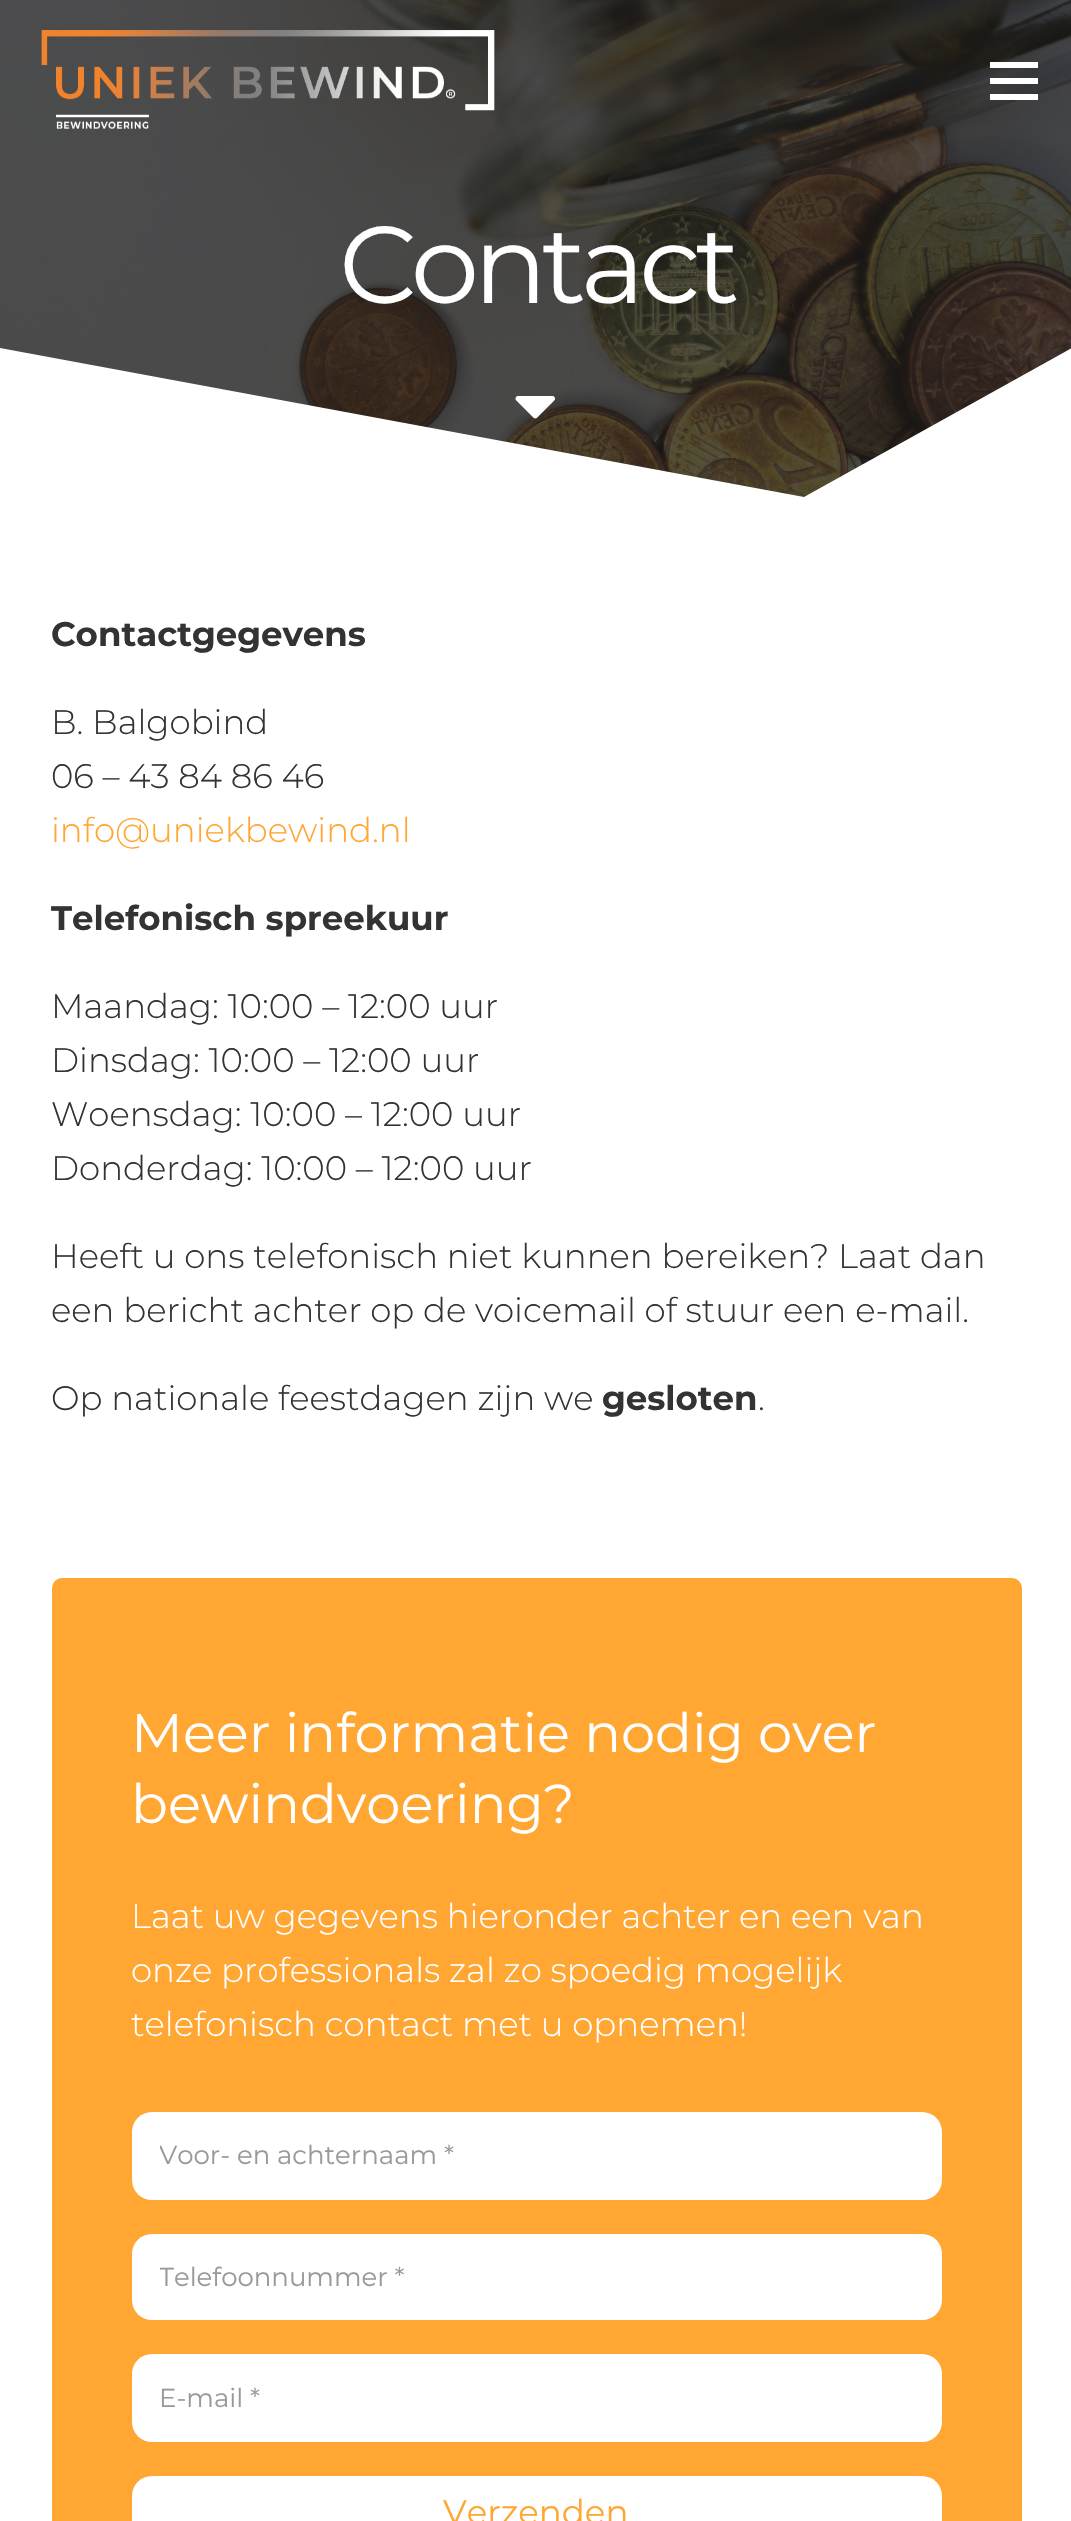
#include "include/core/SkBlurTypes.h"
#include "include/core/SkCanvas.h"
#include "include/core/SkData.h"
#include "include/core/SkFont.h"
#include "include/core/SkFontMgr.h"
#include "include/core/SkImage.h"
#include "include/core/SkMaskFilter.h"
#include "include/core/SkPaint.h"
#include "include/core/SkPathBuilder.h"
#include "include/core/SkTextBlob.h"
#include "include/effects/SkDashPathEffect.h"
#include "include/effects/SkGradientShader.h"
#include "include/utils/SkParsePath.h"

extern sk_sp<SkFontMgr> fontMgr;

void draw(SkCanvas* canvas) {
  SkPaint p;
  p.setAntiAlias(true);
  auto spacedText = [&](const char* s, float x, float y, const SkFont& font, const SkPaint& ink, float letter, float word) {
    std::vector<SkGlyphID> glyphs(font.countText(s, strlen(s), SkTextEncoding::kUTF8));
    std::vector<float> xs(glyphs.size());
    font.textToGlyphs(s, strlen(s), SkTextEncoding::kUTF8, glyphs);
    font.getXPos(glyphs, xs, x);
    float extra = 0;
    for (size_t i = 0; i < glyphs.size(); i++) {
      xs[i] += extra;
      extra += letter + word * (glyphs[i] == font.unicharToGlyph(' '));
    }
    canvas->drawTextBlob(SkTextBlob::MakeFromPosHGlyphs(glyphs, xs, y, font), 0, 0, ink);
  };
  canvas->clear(SK_ColorWHITE);
  canvas->drawImageRect(SkImages::DeferredFromEncodedData(SkData::MakeFromFileName("images/2.png")), SkRect::MakeLTRB(0, 0, 1071, 497), SkSamplingOptions());
  canvas->drawImageRect(SkImages::DeferredFromEncodedData(SkData::MakeFromFileName("images/1.png")), SkRect::MakeLTRB(41, 30, 495, 129), SkSamplingOptions());
  p.setColor(SK_ColorWHITE);
  canvas->drawRect(SkRect::MakeLTRB(990, 78, 1038, 84), p);
  canvas->drawRect(SkRect::MakeLTRB(990, 62, 1038, 68), p);
  canvas->drawRect(SkRect::MakeLTRB(990, 94, 1038, 100), p);
  canvas->drawPath(SkPathBuilder().moveTo(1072, 499).lineTo(0, 499).lineTo(0, 348).lineTo(804, 497).lineTo(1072, 348).close().detach(), p);
  canvas->drawImageRect(SkImages::DeferredFromEncodedData(SkData::MakeFromFileName("images/3.png")), SkRect::MakeLTRB(515, 396, 555, 419), SkSamplingOptions());
  p.setColor(SkColorSetRGB(255, 166, 51));
  canvas->drawRoundRect(SkRect::MakeLTRB(52, 1578, 1022, 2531), 10, 10, p);
  p.setColor(SK_ColorWHITE);
  canvas->drawRoundRect(SkRect::MakeLTRB(132, 2112, 942, 2200), 20, 20, p);
  canvas->drawRoundRect(SkRect::MakeLTRB(132, 2234, 942, 2320), 20, 20, p);
  canvas->drawRoundRect(SkRect::MakeLTRB(132, 2354, 942, 2442), 20, 20, p);
  canvas->drawRoundRect(SkRect::MakeLTRB(132, 2476, 942, 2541), 20, 20, p);
  SkFont font1(fontMgr->matchFamilyStyle("Montserrat", SkFontStyle::Normal()), 109);
  font1.setSubpixel(true);
  spacedText("Contact", 339, 303, font1, p, -5.5f, 0);
  SkFont font2(fontMgr->matchFamilyStyle("Montserrat", SkFontStyle::Bold()), 34);
  font2.setSubpixel(true);
  p.setColor(SkColorSetRGB(51, 51, 51));
  canvas->drawString("Contactgegevens", 51, 646, font2, p);
  SkFont font3(fontMgr->matchFamilyStyle("Montserrat", SkFontStyle(300, SkFontStyle::kNormal_Width, SkFontStyle::kUpright_Slant)), 34);
  font3.setSubpixel(true);
  canvas->drawString("B. Balgobind", 51, 734, font3, p);
  canvas->drawString("06 – 43 84 86 46", 51, 788, font3, p);
  p.setColor(SkColorSetRGB(255, 166, 51));
  canvas->drawString("info@uniekbewind.nl", 51, 842, font3, p);
  p.setColor(SkColorSetRGB(51, 51, 51));
  canvas->drawString("Telefonisch spreekuur", 51, 930, font2, p);
  canvas->drawString("Maandag: 10:00 – 12:00 uur", 51, 1018, font3, p);
  canvas->drawString("Dinsdag: 10:00 – 12:00 uur", 51, 1072, font3, p);
  canvas->drawString("Woensdag: 10:00 – 12:00 uur", 51, 1126, font3, p);
  canvas->drawString("Donderdag: 10:00 – 12:00 uur", 51, 1180, font3, p);
  canvas->drawString("Heeft u ons telefonisch niet kunnen bereiken? Laat dan", 51, 1268, font3, p);
  canvas->drawString("een bericht achter op de voicemail of stuur een e-mail.", 51, 1322, font3, p);
  canvas->drawString("Op nationale feestdagen zijn we", 51, 1410, font3, p);
  canvas->drawString("gesloten", 602, 1410, font2, p);
  canvas->drawString(".", 758, 1410, font3, p);
  SkFont font4(fontMgr->matchFamilyStyle("Montserrat", SkFontStyle::Normal()), 54.4f);
  font4.setSubpixel(true);
  p.setColor(SK_ColorWHITE);
  canvas->drawString("Meer informatie nodig over", 131, 1752, font4, p);
  canvas->drawString("bewindvoering?", 131, 1823, font4, p);
  canvas->drawString("Laat uw gegevens hieronder achter en een van", 131, 1928, font3, p);
  canvas->drawString("onze professionals zal zo spoedig mogelijk", 131, 1982, font3, p);
  canvas->drawString("telefonisch contact met u opnemen!", 131, 2036, font3, p);
  canvas->save();
  canvas->clipRect(SkRect::MakeLTRB(160, 2138, 914, 2170));
  SkFont font5(fontMgr->matchFamilyStyle("Montserrat", SkFontStyle::Normal()), 26);
  font5.setSubpixel(true);
  p.setColor(SkColorSetRGB(153, 153, 153));
  canvas->drawString("Voor- en achternaam *", 159, 2164, font5, p);
  canvas->restore();
  canvas->save();
  canvas->clipRect(SkRect::MakeLTRB(160, 2260, 914, 2292));
  canvas->drawString("Telefoonnummer *", 159, 2286, font5, p);
  canvas->restore();
  canvas->drawString("E-mail *", 159, 2407, font5, p);
  SkFont font6(fontMgr->matchFamilyStyle("Montserrat", SkFontStyle::Normal()), 34);
  font6.setSubpixel(true);
  p.setColor(SkColorSetRGB(255, 166, 51));
  canvas->drawString("Verzenden", 443, 2524, font6, p);
}
